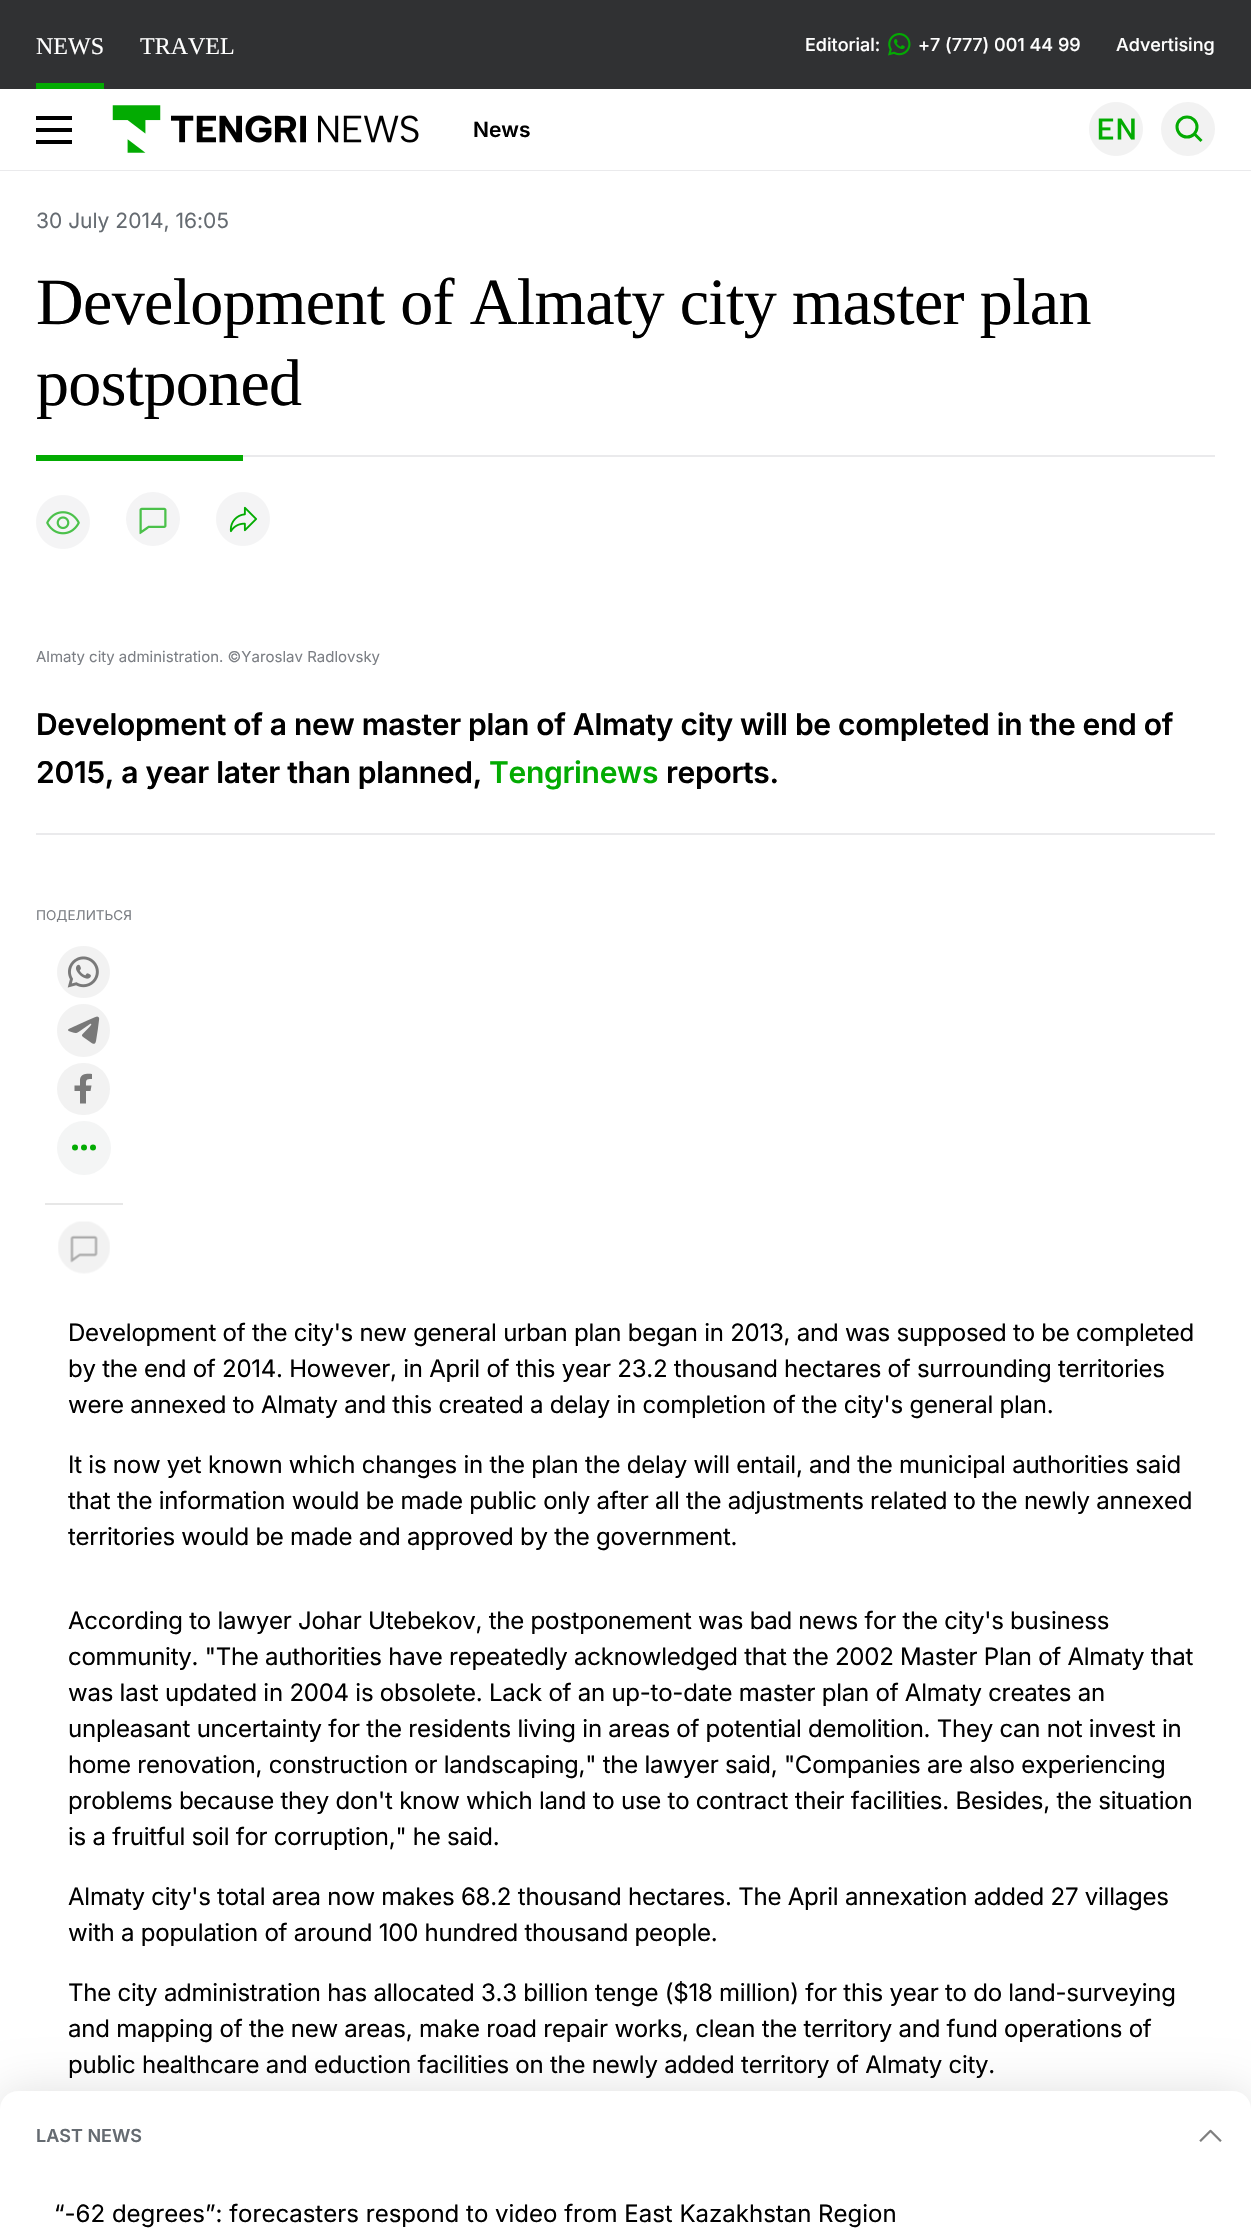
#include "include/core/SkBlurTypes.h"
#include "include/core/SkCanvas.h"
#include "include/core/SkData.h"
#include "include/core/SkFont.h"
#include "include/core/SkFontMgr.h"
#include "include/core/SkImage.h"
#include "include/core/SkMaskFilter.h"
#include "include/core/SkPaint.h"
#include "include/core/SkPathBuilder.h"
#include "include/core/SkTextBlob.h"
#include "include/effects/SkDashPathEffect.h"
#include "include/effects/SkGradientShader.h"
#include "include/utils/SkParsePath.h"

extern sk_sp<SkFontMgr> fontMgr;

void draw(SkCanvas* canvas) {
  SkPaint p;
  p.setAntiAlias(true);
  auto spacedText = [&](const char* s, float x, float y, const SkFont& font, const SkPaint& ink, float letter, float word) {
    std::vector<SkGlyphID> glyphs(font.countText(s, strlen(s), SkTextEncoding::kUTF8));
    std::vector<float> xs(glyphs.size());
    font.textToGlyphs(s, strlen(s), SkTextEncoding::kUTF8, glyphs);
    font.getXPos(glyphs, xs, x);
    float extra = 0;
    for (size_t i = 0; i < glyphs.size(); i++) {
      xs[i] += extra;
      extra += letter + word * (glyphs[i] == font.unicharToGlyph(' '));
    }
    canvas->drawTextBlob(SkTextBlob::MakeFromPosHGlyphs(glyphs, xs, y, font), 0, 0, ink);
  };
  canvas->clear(SkColorSetRGB(48, 49, 51));
  p.setColor(SkColorSetRGB(3, 171, 2));
  canvas->drawRect(SkRect::MakeLTRB(36, 83, 104, 89), p);
  canvas->drawImageRect(SkImages::DeferredFromEncodedData(SkData::MakeFromFileName("images/1.png")), SkRect::MakeLTRB(888, 33, 911, 56), SkSamplingOptions());
  p.setColor(SK_ColorWHITE);
  canvas->drawRect(SkRect::MakeLTRB(0, 89, 1251, 170), p);
  p.setColor(SkColorSetRGB(234, 234, 236));
  canvas->drawRect(SkRect::MakeLTRB(0, 170, 1251, 171), p);
  p.setColor(SK_ColorBLACK);
  canvas->drawRect(SkRect::MakeLTRB(36, 116, 72, 120), p);
  canvas->drawRect(SkRect::MakeLTRB(36, 128, 72, 132), p);
  canvas->drawRect(SkRect::MakeLTRB(36, 140, 72, 144), p);
  canvas->drawImageRect(SkImages::DeferredFromEncodedData(SkData::MakeFromFileName("images/2.png")), SkRect::MakeLTRB(112, 105, 419, 153), SkSamplingOptions());
  canvas->drawImageRect(SkImages::DeferredFromEncodedData(SkData::MakeFromFileName("images/3.png")), SkRect::MakeLTRB(1089, 102, 1143, 156), SkSamplingOptions());
  p.setColor(SkColorSetRGB(242, 242, 242));
  canvas->drawCircle(1188, 129, 27, p);
  p.setStyle(SkPaint::kStroke_Style);
  p.setStrokeWidth(3);
  p.setColor(SkColorSetRGB(3, 171, 2));
  canvas->drawCircle(1187, 127, 10, p);
  canvas->drawPath(SkPathBuilder().moveTo(1194, 133.5f).lineTo(1201.5f, 141).detach(), p);
  p.setStyle(SkPaint::kFill_Style);
  p.setColor(SK_ColorWHITE);
  canvas->drawRect(SkRect::MakeLTRB(0, 171, 1251, 2109), p);
  p.setColor(SkColorSetRGB(234, 234, 236));
  canvas->drawRect(SkRect::MakeLTRB(243, 455, 1215, 457), p);
  p.setColor(SkColorSetRGB(3, 171, 2));
  canvas->drawRect(SkRect::MakeLTRB(36, 455, 243, 461), p);
  canvas->drawImageRect(SkImages::DeferredFromEncodedData(SkData::MakeFromFileName("images/4.png")), SkRect::MakeLTRB(36, 495, 90, 549), SkSamplingOptions());
  canvas->drawImageRect(SkImages::DeferredFromEncodedData(SkData::MakeFromFileName("images/5.png")), SkRect::MakeLTRB(126, 492, 180, 546), SkSamplingOptions());
  canvas->drawImageRect(SkImages::DeferredFromEncodedData(SkData::MakeFromFileName("images/6.png")), SkRect::MakeLTRB(216, 492, 270, 546), SkSamplingOptions());
  p.setColor(SkColorSetRGB(234, 234, 236));
  canvas->drawRect(SkRect::MakeLTRB(36, 833, 1215, 835), p);
  canvas->drawImageRect(SkImages::DeferredFromEncodedData(SkData::MakeFromFileName("images/7.png")), SkRect::MakeLTRB(57, 946, 110, 998), SkSamplingOptions());
  canvas->drawImageRect(SkImages::DeferredFromEncodedData(SkData::MakeFromFileName("images/8.png")), SkRect::MakeLTRB(57, 1004, 110, 1057), SkSamplingOptions());
  p.setColor(SkColorSetRGB(242, 242, 242));
  canvas->drawRoundRect(SkRect::MakeLTRB(57, 1063, 110, 1115), 26, 26, p);
  p.setColor(SkColorSetRGB(121, 121, 121));
  canvas->drawPath(SkPathBuilder().moveTo(90.5f, 1091).lineTo(91.5f, 1085.5f).lineTo(86, 1085.5f).cubicTo(86, 1080, 85.5f, 1079, 92, 1079).lineTo(92, 1074).cubicTo(87, 1073.5f, 81, 1073.5f, 80, 1079.5f).lineTo(80, 1085.5f).lineTo(74.5f, 1085.5f).lineTo(74.5f, 1091).lineTo(80, 1091).lineTo(80, 1103.5f).lineTo(86, 1103.5f).lineTo(86, 1091).close().detach(), p);
  p.setColor(SkColorSetRGB(244, 245, 245));
  canvas->drawCircle(84, 1148, 27, p);
  p.setColor(SkColorSetRGB(3, 171, 2));
  canvas->drawCircle(75, 1147.5f, 3, p);
  canvas->drawCircle(84, 1147.5f, 3, p);
  canvas->drawCircle(93, 1147.5f, 3, p);
  p.setColor(SkColorSetRGB(231, 231, 231));
  canvas->drawRect(SkRect::MakeLTRB(45, 1203, 123, 1205), p);
  canvas->drawImageRect(SkImages::DeferredFromEncodedData(SkData::MakeFromFileName("images/9.png")), SkRect::MakeLTRB(58, 1221, 110, 1274), SkSamplingOptions());
  p.setColor(SkColorSetARGB(31, 0, 0, 0));
  p.setMaskFilter(SkMaskFilter::MakeBlur(kNormal_SkBlurStyle, 22.5f));
  canvas->drawRoundRect(SkRect::MakeLTRB(0, 2091, 1251, 2238), 18, 18, p);
  p.setMaskFilter(nullptr);
  p.setColor(SK_ColorWHITE);
  canvas->drawPath(SkPathBuilder().moveTo(18, 2091).lineTo(1233, 2091).cubicTo(1243, 2091, 1251, 2099, 1251, 2109).lineTo(1251, 2238).lineTo(0, 2238).lineTo(0, 2109).cubicTo(0, 2099, 8, 2091, 18, 2091).close().detach(), p);
  canvas->drawImageRect(SkImages::DeferredFromEncodedData(SkData::MakeFromFileName("images/10.png")), SkRect::MakeLTRB(1199, 2129, 1222, 2142), SkSamplingOptions());
  SkFont font1(fontMgr->matchFamilyStyle("Liberation Serif", SkFontStyle::Normal()), 24);
  font1.setSubpixel(true);
  canvas->drawString("NEWS", 36, 54, font1, p);
  canvas->drawString("TRAVEL", 140, 54, font1, p);
  SkFont font2(fontMgr->matchFamilyStyle("Inter", SkFontStyle(500, SkFontStyle::kNormal_Width, SkFontStyle::kUpright_Slant)), 18);
  font2.setSubpixel(true);
  canvas->drawString("Editorial:", 805, 51, font2, p);
  canvas->drawString("+7 (777) 001 44 99", 918, 51, font2, p);
  canvas->drawString("Advertising", 1116, 51, font2, p);
  SkFont font3(fontMgr->matchFamilyStyle("Inter", SkFontStyle(600, SkFontStyle::kNormal_Width, SkFontStyle::kUpright_Slant)), 21);
  font3.setSubpixel(true);
  p.setColor(SK_ColorBLACK);
  canvas->drawString("News", 473, 137, font3, p);
  SkFont font4(fontMgr->matchFamilyStyle("Inter", SkFontStyle::Normal()), 21);
  font4.setSubpixel(true);
  p.setColor(SkColorSetRGB(101, 107, 113));
  canvas->drawString("30 July 2014, 16:05", 36, 228, font4, p);
  SkFont font5(fontMgr->matchFamilyStyle("Liberation Serif", SkFontStyle::Normal()), 66);
  font5.setSubpixel(true);
  p.setColor(SK_ColorBLACK);
  spacedText("Development of Almaty city master plan", 36, 324, font5, p, -0.65f, 0);
  spacedText("postponed", 36, 405, font5, p, -0.65f, 0);
  SkFont font6(fontMgr->matchFamilyStyle("Inter", SkFontStyle::Normal()), 15);
  font6.setSubpixel(true);
  p.setColor(SkColorSetRGB(124, 127, 133));
  canvas->drawString("Almaty city administration. ©Yaroslav Radlovsky", 36, 662, font6, p);
  SkFont font7(fontMgr->matchFamilyStyle("Inter", SkFontStyle(600, SkFontStyle::kNormal_Width, SkFontStyle::kUpright_Slant)), 30);
  font7.setSubpixel(true);
  p.setColor(SK_ColorBLACK);
  spacedText("Development of a new master plan of Almaty city will be completed in the end of", 36, 735, font7, p, -0.3f, 0);
  spacedText("2015, a year later than planned,", 36, 783, font7, p, -0.3f, 0);
  p.setColor(SkColorSetRGB(3, 171, 2));
  spacedText("Tengrinews", 489, 783, font7, p, -0.3f, 0);
  p.setColor(SK_ColorBLACK);
  spacedText("reports.", 666, 783, font7, p, -0.3f, 0);
  SkFont font8(fontMgr->matchFamilyStyle("Inter", SkFontStyle::Normal()), 13.5f);
  font8.setSubpixel(true);
  p.setColor(SkColorSetRGB(124, 127, 133));
  canvas->drawString("ПОДЕЛИТЬСЯ", 36, 920, font8, p);
  SkFont font9(fontMgr->matchFamilyStyle("Inter", SkFontStyle::Normal()), 24);
  font9.setSubpixel(true);
  p.setColor(SK_ColorBLACK);
  spacedText("Development of the city's new general urban plan began in 2013, and was supposed to be completed", 68, 1341, font9, p, -0.24f, 0);
  spacedText("by the end of 2014. However, in April of this year 23.2 thousand hectares of surrounding territories", 68, 1377, font9, p, -0.24f, 0);
  spacedText("were annexed to Almaty and this created a delay in completion of the city's general plan.", 68, 1413, font9, p, -0.24f, 0);
  spacedText("It is now yet known which changes in the plan the delay will entail, and the municipal authorities said", 68, 1473, font9, p, -0.24f, 0);
  spacedText("that the information would be made public only after all the adjustments related to the newly annexed", 68, 1509, font9, p, -0.24f, 0);
  spacedText("territories would be made and approved by the government.", 68, 1545, font9, p, -0.24f, 0);
  spacedText("According to lawyer Johar Utebekov, the postponement was bad news for the city's business", 68, 1629, font9, p, -0.24f, 0);
  spacedText("community. \"The authorities have repeatedly acknowledged that the 2002 Master Plan of Almaty that", 68, 1665, font9, p, -0.24f, 0);
  spacedText("was last updated in 2004 is obsolete. Lack of an up-to-date master plan of Almaty creates an", 68, 1701, font9, p, -0.24f, 0);
  spacedText("unpleasant uncertainty for the residents living in areas of potential demolition. They can not invest in", 68, 1737, font9, p, -0.24f, 0);
  spacedText("home renovation, construction or landscaping,\" the lawyer said, \"Companies are also experiencing", 68, 1773, font9, p, -0.24f, 0);
  spacedText("problems because they don't know which land to use to contract their facilities. Besides, the situation", 68, 1809, font9, p, -0.24f, 0);
  spacedText("is a fruitful soil for corruption,\" he said.", 68, 1845, font9, p, -0.24f, 0);
  spacedText("Almaty city's total area now makes 68.2 thousand hectares. The April annexation added 27 villages", 68, 1905, font9, p, -0.24f, 0);
  spacedText("with a population of around 100 hundred thousand people.", 68, 1941, font9, p, -0.24f, 0);
  spacedText("The city administration has allocated 3.3 billion tenge ($18 million) for this year to do land-surveying", 68, 2001, font9, p, -0.24f, 0);
  spacedText("and mapping of the new areas, make road repair works, clean the territory and fund operations of", 68, 2037, font9, p, -0.24f, 0);
  spacedText("public healthcare and eduction facilities on the newly added territory of Almaty city.", 68, 2073, font9, p, -0.24f, 0);
  SkFont font10(fontMgr->matchFamilyStyle("Inter", SkFontStyle(600, SkFontStyle::kNormal_Width, SkFontStyle::kUpright_Slant)), 18);
  font10.setSubpixel(true);
  p.setColor(SkColorSetRGB(101, 107, 113));
  canvas->drawString("LAST NEWS", 36, 2142, font10, p);
  p.setColor(SK_ColorBLACK);
  canvas->drawString("“-62 degrees”: forecasters respond to video from East Kazakhstan Region", 54, 2222, font9, p);
}
